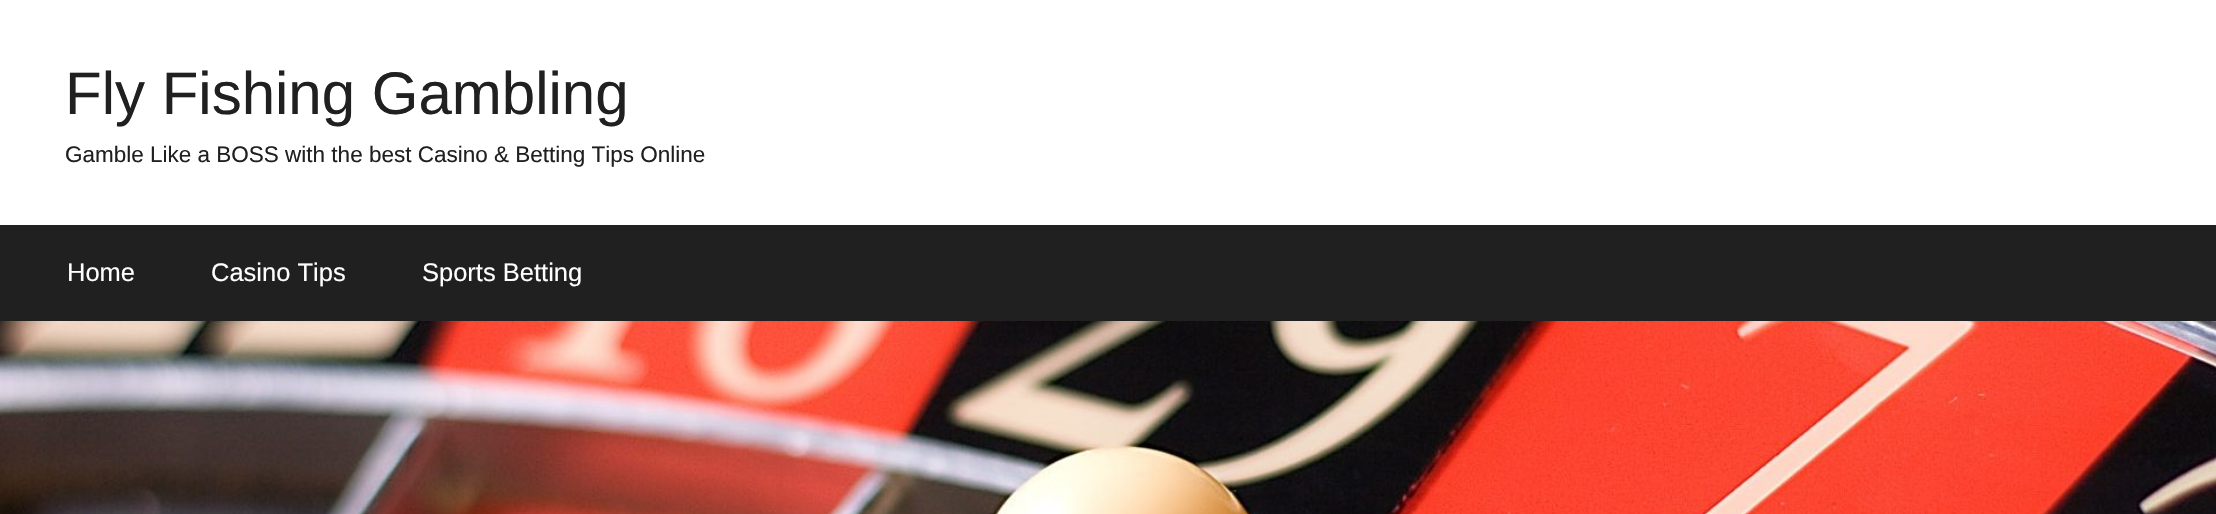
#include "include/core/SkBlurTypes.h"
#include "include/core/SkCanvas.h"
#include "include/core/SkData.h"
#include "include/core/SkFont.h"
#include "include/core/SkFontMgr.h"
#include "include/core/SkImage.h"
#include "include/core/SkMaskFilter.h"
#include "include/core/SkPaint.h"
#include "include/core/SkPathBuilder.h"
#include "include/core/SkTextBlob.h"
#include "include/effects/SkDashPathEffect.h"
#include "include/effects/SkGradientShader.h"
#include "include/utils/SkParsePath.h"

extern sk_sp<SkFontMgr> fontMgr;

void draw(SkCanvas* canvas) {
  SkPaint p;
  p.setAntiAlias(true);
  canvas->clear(SK_ColorWHITE);
  p.setColor(SkColorSetRGB(32, 32, 32));
  canvas->drawRect(SkRect::MakeLTRB(0, 225, 2216, 321), p);
  canvas->drawImageRect(SkImages::DeferredFromEncodedData(SkData::MakeFromFileName("images/1.png")), SkRect::MakeLTRB(0, 321, 2216, 514), SkSamplingOptions());
  SkFont font1(fontMgr->matchFamilyStyle("Liberation Sans", SkFontStyle::Normal()), 60);
  font1.setSubpixel(true);
  canvas->drawString("Fly Fishing Gambling", 65, 114, font1, p);
  SkFont font2(fontMgr->matchFamilyStyle("Liberation Sans", SkFontStyle::Normal()), 22.5f);
  font2.setSubpixel(true);
  canvas->drawString("Gamble Like a BOSS with the best Casino & Betting Tips Online", 65, 162, font2, p);
  SkFont font3(fontMgr->matchFamilyStyle("Liberation Sans", SkFontStyle::Normal()), 25.5f);
  font3.setSubpixel(true);
  p.setColor(SK_ColorWHITE);
  canvas->drawString("Home", 67, 281, font3, p);
  canvas->drawString("Casino Tips", 211, 281, font3, p);
  canvas->drawString("Sports Betting", 422, 281, font3, p);
}
